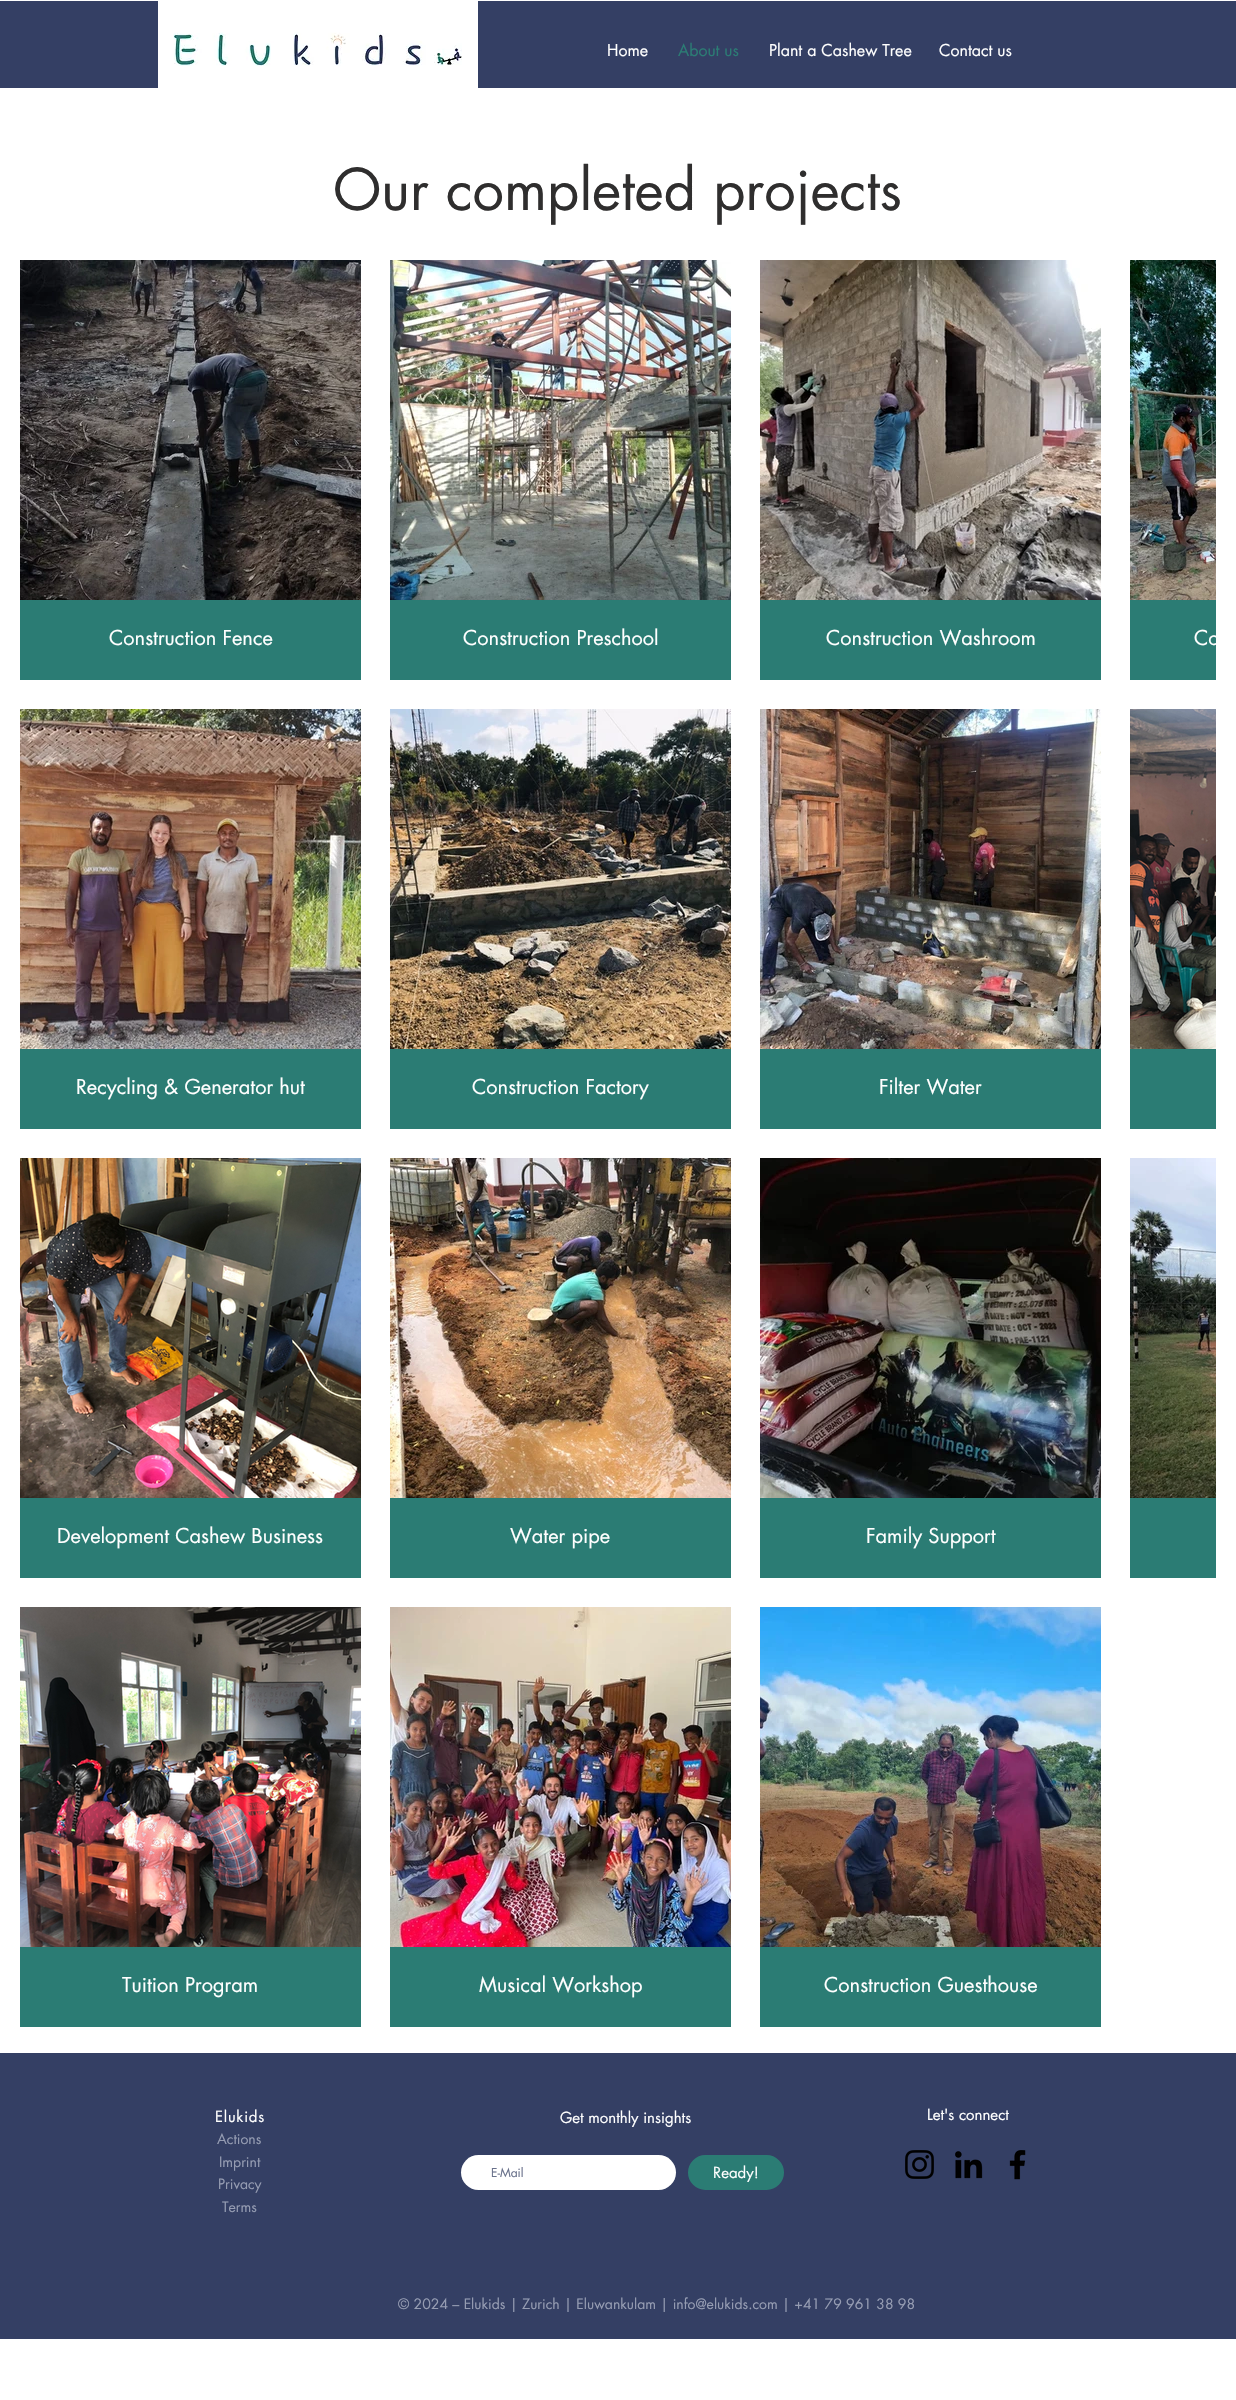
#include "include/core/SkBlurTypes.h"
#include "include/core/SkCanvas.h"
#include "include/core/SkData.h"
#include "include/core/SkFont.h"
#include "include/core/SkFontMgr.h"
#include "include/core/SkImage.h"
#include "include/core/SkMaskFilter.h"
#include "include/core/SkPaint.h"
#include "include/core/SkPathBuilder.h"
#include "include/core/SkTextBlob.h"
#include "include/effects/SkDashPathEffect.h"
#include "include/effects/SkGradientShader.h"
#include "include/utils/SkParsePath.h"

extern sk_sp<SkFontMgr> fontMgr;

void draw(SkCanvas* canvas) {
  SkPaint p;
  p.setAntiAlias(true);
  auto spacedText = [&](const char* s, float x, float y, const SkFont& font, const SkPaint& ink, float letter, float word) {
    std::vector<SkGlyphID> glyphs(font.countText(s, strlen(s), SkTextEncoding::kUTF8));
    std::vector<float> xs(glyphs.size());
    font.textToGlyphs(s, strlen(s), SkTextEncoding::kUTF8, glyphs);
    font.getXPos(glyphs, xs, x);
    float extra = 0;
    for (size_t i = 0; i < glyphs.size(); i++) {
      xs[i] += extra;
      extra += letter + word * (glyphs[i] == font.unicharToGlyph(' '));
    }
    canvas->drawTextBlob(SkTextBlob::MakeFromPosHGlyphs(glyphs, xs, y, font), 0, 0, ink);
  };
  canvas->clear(SK_ColorWHITE);
  p.setColor(SkColorSetRGB(52, 63, 100));
  canvas->drawRect(SkRect::MakeLTRB(0, 1, 1236, 88), p);
  p.setColor(SK_ColorWHITE);
  canvas->drawRect(SkRect::MakeLTRB(158, 1, 478, 88), p);
  canvas->drawImageRect(SkImages::DeferredFromEncodedData(SkData::MakeFromFileName("images/1.png")), SkRect::MakeLTRB(173, 32, 462, 66), SkSamplingOptions());
  canvas->drawImageRect(SkImages::DeferredFromEncodedData(SkData::MakeFromFileName("images/2.png")), SkRect::MakeLTRB(20, 260, 361, 600), SkSamplingOptions());
  p.setColor(SkColorSetRGB(43, 124, 116));
  canvas->drawRect(SkRect::MakeLTRB(20, 600, 361, 680), p);
  canvas->drawImageRect(SkImages::DeferredFromEncodedData(SkData::MakeFromFileName("images/3.png")), SkRect::MakeLTRB(390, 260, 731, 600), SkSamplingOptions());
  canvas->drawRect(SkRect::MakeLTRB(390, 600, 731, 680), p);
  canvas->drawImageRect(SkImages::DeferredFromEncodedData(SkData::MakeFromFileName("images/4.png")), SkRect::MakeLTRB(760, 260, 1101, 600), SkSamplingOptions());
  canvas->drawRect(SkRect::MakeLTRB(760, 600, 1101, 680), p);
  canvas->drawImageRect(SkImages::DeferredFromEncodedData(SkData::MakeFromFileName("images/5.png")), SkRect::MakeLTRB(1130, 260, 1216, 600), SkSamplingOptions());
  canvas->drawRect(SkRect::MakeLTRB(1130, 600, 1216, 680), p);
  canvas->drawImageRect(SkImages::DeferredFromEncodedData(SkData::MakeFromFileName("images/6.png")), SkRect::MakeLTRB(20, 709, 361, 1049), SkSamplingOptions());
  canvas->drawRect(SkRect::MakeLTRB(20, 1049, 361, 1129), p);
  canvas->drawImageRect(SkImages::DeferredFromEncodedData(SkData::MakeFromFileName("images/7.png")), SkRect::MakeLTRB(390, 709, 731, 1049), SkSamplingOptions());
  canvas->drawRect(SkRect::MakeLTRB(390, 1049, 731, 1129), p);
  canvas->drawImageRect(SkImages::DeferredFromEncodedData(SkData::MakeFromFileName("images/8.png")), SkRect::MakeLTRB(760, 709, 1101, 1049), SkSamplingOptions());
  canvas->drawRect(SkRect::MakeLTRB(760, 1049, 1101, 1129), p);
  canvas->drawImageRect(SkImages::DeferredFromEncodedData(SkData::MakeFromFileName("images/9.png")), SkRect::MakeLTRB(1130, 709, 1216, 1049), SkSamplingOptions());
  canvas->drawRect(SkRect::MakeLTRB(1130, 1049, 1216, 1129), p);
  canvas->drawImageRect(SkImages::DeferredFromEncodedData(SkData::MakeFromFileName("images/10.png")), SkRect::MakeLTRB(20, 1158, 361, 1498), SkSamplingOptions());
  canvas->drawRect(SkRect::MakeLTRB(20, 1498, 361, 1578), p);
  canvas->drawImageRect(SkImages::DeferredFromEncodedData(SkData::MakeFromFileName("images/11.png")), SkRect::MakeLTRB(390, 1158, 731, 1498), SkSamplingOptions());
  canvas->drawRect(SkRect::MakeLTRB(390, 1498, 731, 1578), p);
  canvas->drawImageRect(SkImages::DeferredFromEncodedData(SkData::MakeFromFileName("images/12.png")), SkRect::MakeLTRB(760, 1158, 1101, 1498), SkSamplingOptions());
  canvas->drawRect(SkRect::MakeLTRB(760, 1498, 1101, 1578), p);
  canvas->drawImageRect(SkImages::DeferredFromEncodedData(SkData::MakeFromFileName("images/13.png")), SkRect::MakeLTRB(1130, 1158, 1216, 1498), SkSamplingOptions());
  canvas->drawRect(SkRect::MakeLTRB(1130, 1498, 1216, 1578), p);
  canvas->drawImageRect(SkImages::DeferredFromEncodedData(SkData::MakeFromFileName("images/14.png")), SkRect::MakeLTRB(20, 1607, 361, 1947), SkSamplingOptions());
  canvas->drawRect(SkRect::MakeLTRB(20, 1947, 361, 2027), p);
  canvas->drawImageRect(SkImages::DeferredFromEncodedData(SkData::MakeFromFileName("images/15.png")), SkRect::MakeLTRB(390, 1607, 731, 1947), SkSamplingOptions());
  canvas->drawRect(SkRect::MakeLTRB(390, 1947, 731, 2027), p);
  canvas->drawImageRect(SkImages::DeferredFromEncodedData(SkData::MakeFromFileName("images/16.png")), SkRect::MakeLTRB(760, 1607, 1101, 1947), SkSamplingOptions());
  canvas->drawRect(SkRect::MakeLTRB(760, 1947, 1101, 2027), p);
  p.setColor(SkColorSetRGB(52, 63, 100));
  canvas->drawRect(SkRect::MakeLTRB(0, 2053, 1236, 2339), p);
  p.setColor(SK_ColorWHITE);
  canvas->drawRoundRect(SkRect::MakeLTRB(461, 2155, 676, 2190), 17.5f, 17.5f, p);
  p.setColor(SkColorSetRGB(43, 124, 116));
  canvas->drawRoundRect(SkRect::MakeLTRB(689, 2156, 783, 2189), 16.5f, 16.5f, p);
  p.setStyle(SkPaint::kStroke_Style);
  p.setStrokeWidth(2);
  canvas->drawRoundRect(SkRect::MakeLTRB(689, 2156, 783, 2189), 16.5f, 16.5f, p);
  canvas->drawImageRect(SkImages::DeferredFromEncodedData(SkData::MakeFromFileName("images/17.png")), SkRect::MakeLTRB(905, 2150, 934, 2179), SkSamplingOptions());
  canvas->drawImageRect(SkImages::DeferredFromEncodedData(SkData::MakeFromFileName("images/18.png")), SkRect::MakeLTRB(955, 2151, 983, 2179), SkSamplingOptions());
  canvas->drawImageRect(SkImages::DeferredFromEncodedData(SkData::MakeFromFileName("images/19.png")), SkRect::MakeLTRB(1009, 2150, 1026, 2180), SkSamplingOptions());
  SkFont font1(fontMgr->matchFamilyStyle("futura", SkFontStyle::Normal()), 16);
  font1.setSubpixel(true);
  p.setStyle(SkPaint::kFill_Style);
  p.setColor(SK_ColorWHITE);
  canvas->drawString("Home", 607, 56, font1, p);
  p.setColor(SkColorSetRGB(43, 124, 116));
  canvas->drawString("About us", 678, 56, font1, p);
  p.setColor(SK_ColorWHITE);
  canvas->drawString("Plant a Cashew Tree", 769, 56, font1, p);
  canvas->drawString("Contact us", 939, 56, font1, p);
  SkFont font2(fontMgr->matchFamilyStyle("futura", SkFontStyle::Normal()), 56);
  font2.setSubpixel(true);
  p.setColor(SkColorSetRGB(47, 46, 46));
  canvas->drawString("Our completed projects", 333, 210, font2, p);
  SkFont font3(fontMgr->matchFamilyStyle("futura", SkFontStyle::Normal()), 20);
  font3.setSubpixel(true);
  p.setColor(SK_ColorWHITE);
  canvas->drawString("Construction Fence", 109, 645, font3, p);
  canvas->drawString("Construction Preschool", 463, 645, font3, p);
  canvas->drawString("Construction Washroom", 826, 645, font3, p);
  canvas->save();
  canvas->clipRect(SkRect::MakeLTRB(1130, 600, 1216, 680));
  canvas->drawString("Co", 1194, 645, font3, p);
  canvas->restore();
  canvas->drawString("Recycling & Generator hut", 76, 1094, font3, p);
  canvas->drawString("Construction Factory", 472, 1094, font3, p);
  canvas->drawString("Filter Water", 879, 1094, font3, p);
  canvas->drawString("Development Cashew Business", 57, 1543, font3, p);
  canvas->drawString("Water pipe", 510, 1543, font3, p);
  canvas->drawString("Family Support", 866, 1543, font3, p);
  canvas->drawString("Tuition Program", 122, 1992, font3, p);
  canvas->drawString("Musical Workshop", 479, 1992, font3, p);
  canvas->drawString("Construction Guesthouse", 824, 1992, font3, p);
  SkFont font4(fontMgr->matchFamilyStyle("futura", SkFontStyle::Normal()), 15);
  font4.setSubpixel(true);
  spacedText("Elukids", 215, 2122, font4, p, 0.75f, 0);
  canvas->drawString("Get monthly insights", 560, 2123, font4, p);
  canvas->drawString("Let's connect", 927, 2120, font4, p);
  SkFont font5(fontMgr->matchFamilyStyle("futura", SkFontStyle::Normal()), 14);
  font5.setSubpixel(true);
  p.setColor(SkColorSetRGB(149, 156, 178));
  canvas->drawString("Actions", 217, 2144, font5, p);
  canvas->drawString("Imprint", 219, 2167, font5, p);
  canvas->drawString("Privacy", 218, 2189, font5, p);
  canvas->drawString("Terms", 222, 2212, font5, p);
  SkFont font6(fontMgr->matchFamilyStyle("futura", SkFontStyle::Normal()), 12);
  font6.setSubpixel(true);
  p.setColor(SkColorSetRGB(105, 113, 139));
  canvas->drawString("E-Mail", 491, 2177, font6, p);
  p.setColor(SK_ColorWHITE);
  canvas->drawString("Ready!", 713, 2178, font4, p);
  p.setColor(SkColorSetRGB(149, 156, 178));
  canvas->drawString("© 2024 – Elukids | Zurich | Eluwankulam | info@elukids.com | +41 79 961 38 98", 398, 2309, font5, p);
}
